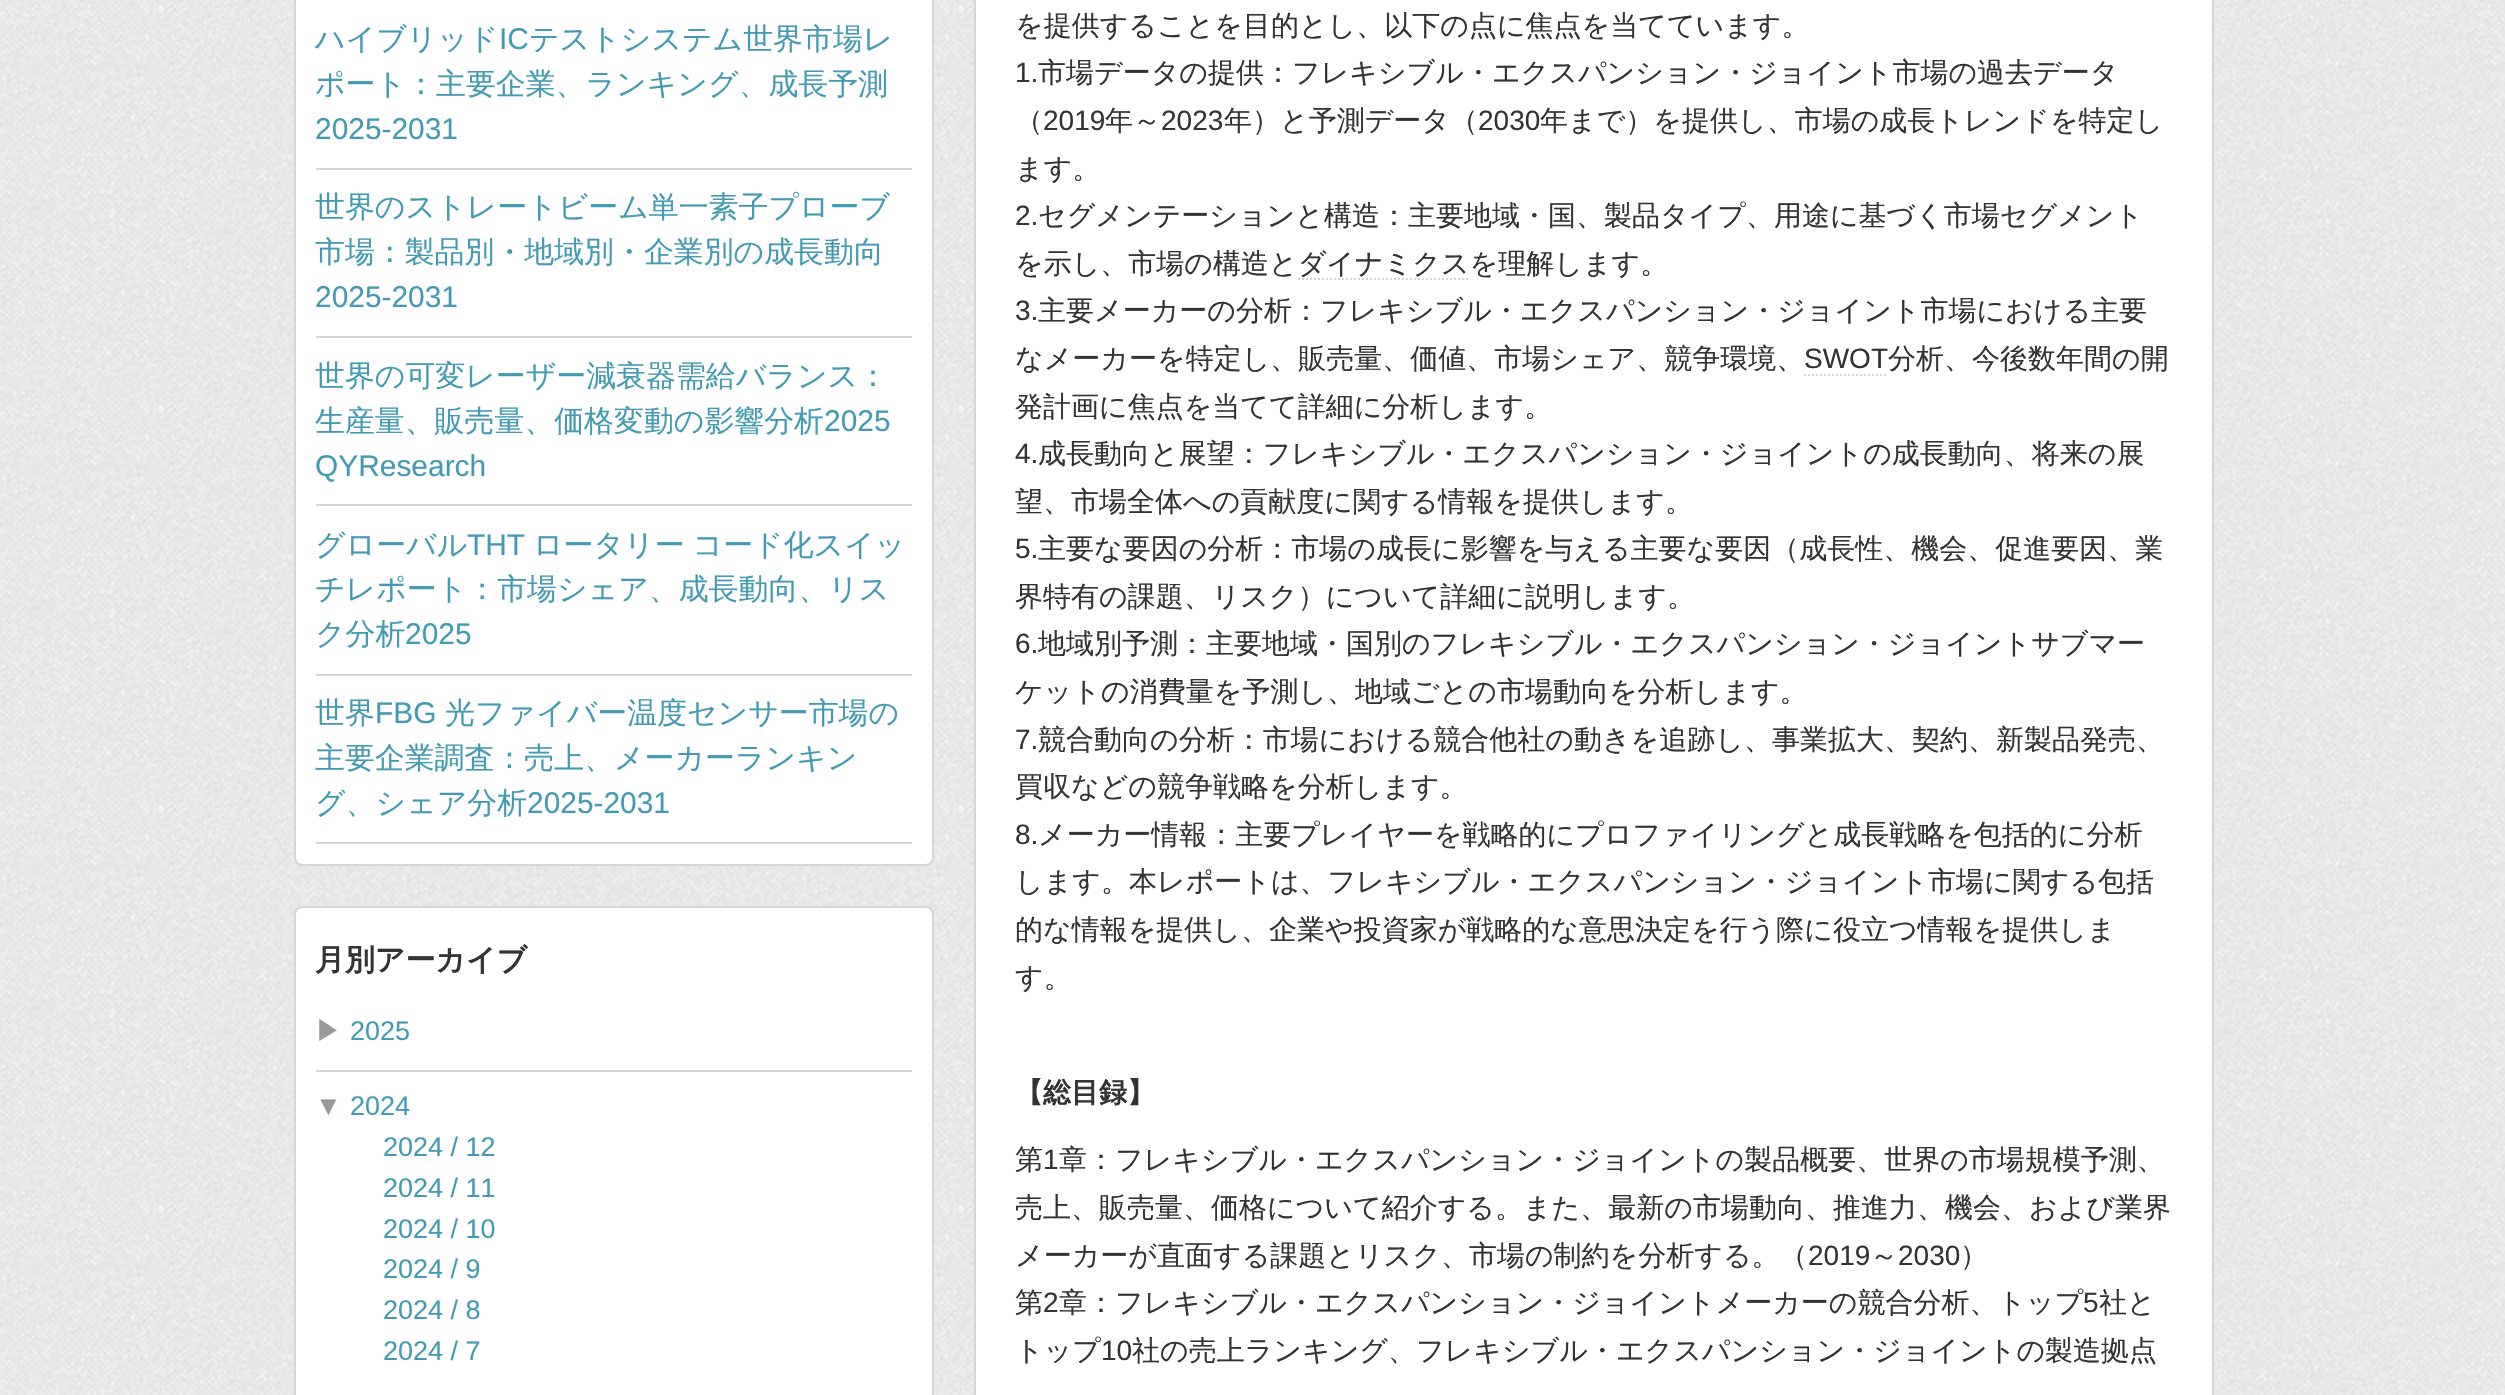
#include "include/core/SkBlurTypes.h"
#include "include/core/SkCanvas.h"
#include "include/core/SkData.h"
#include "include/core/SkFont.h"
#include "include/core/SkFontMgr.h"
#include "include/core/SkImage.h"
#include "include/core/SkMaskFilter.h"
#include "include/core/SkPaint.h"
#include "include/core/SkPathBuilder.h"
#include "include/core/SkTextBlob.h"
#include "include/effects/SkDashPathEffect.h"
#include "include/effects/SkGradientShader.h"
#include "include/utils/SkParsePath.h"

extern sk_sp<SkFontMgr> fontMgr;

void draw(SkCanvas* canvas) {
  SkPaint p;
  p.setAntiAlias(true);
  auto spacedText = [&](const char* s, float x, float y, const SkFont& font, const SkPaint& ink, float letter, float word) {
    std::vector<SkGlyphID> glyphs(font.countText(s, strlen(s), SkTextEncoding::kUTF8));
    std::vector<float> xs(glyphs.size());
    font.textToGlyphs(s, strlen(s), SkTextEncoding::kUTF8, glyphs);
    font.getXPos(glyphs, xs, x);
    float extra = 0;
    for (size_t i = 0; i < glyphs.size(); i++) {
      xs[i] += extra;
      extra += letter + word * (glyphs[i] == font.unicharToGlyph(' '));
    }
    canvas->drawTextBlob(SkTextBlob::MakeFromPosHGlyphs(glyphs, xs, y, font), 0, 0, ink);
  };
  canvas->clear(SK_ColorWHITE);
  canvas->drawImageRect(SkImages::DeferredFromEncodedData(SkData::MakeFromFileName("images/1.png")), SkRect::MakeLTRB(0, 0, 2505, 1395), SkSamplingOptions());
  p.setColor(SK_ColorWHITE);
  canvas->drawRoundRect(SkRect::MakeLTRB(296, -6, 932, 864), 6, 6, p);
  p.setStyle(SkPaint::kStroke_Style);
  p.setStrokeWidth(2);
  p.setColor(SkColorSetRGB(213, 213, 213));
  canvas->drawRoundRect(SkRect::MakeLTRB(295, -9, 933, 865), 7, 7, p);
  p.setStyle(SkPaint::kFill_Style);
  canvas->drawRect(SkRect::MakeLTRB(316, 168, 912, 170), p);
  canvas->drawRect(SkRect::MakeLTRB(316, 336, 912, 338), p);
  canvas->drawRect(SkRect::MakeLTRB(316, 504, 912, 506), p);
  canvas->drawRect(SkRect::MakeLTRB(316, 674, 912, 676), p);
  canvas->drawRect(SkRect::MakeLTRB(316, 842, 912, 844), p);
  p.setColor(SK_ColorWHITE);
  canvas->drawRoundRect(SkRect::MakeLTRB(296, 908, 932, 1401), 6, 6, p);
  p.setStyle(SkPaint::kStroke_Style);
  p.setColor(SkColorSetRGB(213, 213, 213));
  canvas->drawRoundRect(SkRect::MakeLTRB(295, 907, 933, 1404), 7, 7, p);
  p.setStyle(SkPaint::kFill_Style);
  canvas->drawRect(SkRect::MakeLTRB(316, 1070, 912, 1072), p);
  p.setColor(SK_ColorWHITE);
  canvas->drawRect(SkRect::MakeLTRB(975, -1, 2213, 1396), p);
  p.setStyle(SkPaint::kStroke_Style);
  p.setColor(SkColorSetRGB(213, 213, 213));
  canvas->drawRect(SkRect::MakeLTRB(975, -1, 2213, 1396), p);
  p.setPathEffect(SkDashPathEffect::Make({{2, 2}}, 0));
  canvas->drawPath(SkPathBuilder().moveTo(1804, 375).lineTo(1888, 375).detach(), p);
  p.setPathEffect(nullptr);
  SkFont font1(fontMgr->matchFamilyStyle("WenQuanYi Zen Hei", SkFontStyle(500, SkFontStyle::kNormal_Width, SkFontStyle::kUpright_Slant)), 29.9f);
  font1.setSubpixel(true);
  p.setStyle(SkPaint::kFill_Style);
  p.setColor(SkColorSetRGB(66, 155, 178));
  canvas->drawString("ハイブリッド", 315, 49, font1, p);
  SkFont font2(fontMgr->matchFamilyStyle("Liberation Sans", SkFontStyle::Normal()), 29.9f);
  font2.setSubpixel(true);
  canvas->drawString("IC", 499, 49, font2, p);
  canvas->drawString("テストシステム世界市場レ", 529, 49, font1, p);
  canvas->drawString("ポート：主要企業、ランキング、成長予測", 315, 94, font1, p);
  canvas->drawString("2025-2031", 315, 139, font2, p);
  canvas->drawString("世界のストレートビーム単一素子プローブ", 315, 217, font1, p);
  canvas->drawString("市場：製品別・地域別・企業別の成長動向", 315, 262, font1, p);
  canvas->drawString("2025-2031", 315, 307, font2, p);
  canvas->drawString("世界の可変レーザー減衰器需給バランス：", 315, 386, font1, p);
  canvas->drawString("生産量、販売量、価格変動の影響分析", 315, 431, font1, p);
  canvas->drawString("2025", 824, 431, font2, p);
  canvas->drawString("QYResearch", 315, 476, font2, p);
  canvas->drawString("グローバル", 315, 555, font1, p);
  canvas->drawString("THT", 467, 555, font2, p);
  spacedText("ロータリー コード化スイッ", 533, 555, font1, p, 0, -1);
  canvas->drawString("チレポート：市場シェア、成長動向、リス", 315, 599, font1, p);
  canvas->drawString("ク分析", 315, 644, font1, p);
  canvas->drawString("2025", 405, 644, font2, p);
  canvas->drawString("世界", 315, 723, font1, p);
  canvas->drawString("FBG", 375, 723, font2, p);
  canvas->drawString("光ファイバー温度センサー市場の", 445, 723, font1, p);
  canvas->drawString("主要企業調査：売上、メーカーランキン", 315, 768, font1, p);
  canvas->drawString("グ、シェア分析", 315, 813, font1, p);
  canvas->drawString("2025-2031", 527, 813, font2, p);
  SkFont font3(fontMgr->matchFamilyStyle("WenQuanYi Zen Hei", SkFontStyle::Bold()), 29.9f);
  font3.setSubpixel(true);
  p.setColor(SkColorSetRGB(51, 51, 51));
  canvas->drawString("月別アーカイブ", 315, 970, font3, p);
  SkFont font4(fontMgr->matchFamilyStyle("WenQuanYi Zen Hei", SkFontStyle(500, SkFontStyle::kNormal_Width, SkFontStyle::kUpright_Slant)), 27);
  font4.setSubpixel(true);
  p.setColor(SkColorSetRGB(153, 153, 153));
  canvas->drawString("▶", 315, 1040, font4, p);
  SkFont font5(fontMgr->matchFamilyStyle("Liberation Sans", SkFontStyle::Normal()), 27);
  font5.setSubpixel(true);
  p.setColor(SkColorSetRGB(66, 155, 178));
  canvas->drawString("2025", 350, 1040, font5, p);
  p.setColor(SkColorSetRGB(153, 153, 153));
  canvas->drawString("▼", 315, 1115, font5, p);
  p.setColor(SkColorSetRGB(66, 155, 178));
  canvas->drawString("2024", 350, 1115, font5, p);
  canvas->drawString("2024 / 12", 383, 1156, font5, p);
  canvas->drawString("2024 / 11", 383, 1197, font5, p);
  canvas->drawString("2024 / 10", 383, 1238, font5, p);
  canvas->drawString("2024 / 9", 383, 1278, font5, p);
  canvas->drawString("2024 / 8", 383, 1319, font5, p);
  canvas->drawString("2024 / 7", 383, 1360, font5, p);
  SkFont font6(fontMgr->matchFamilyStyle("WenQuanYi Zen Hei", SkFontStyle(500, SkFontStyle::kNormal_Width, SkFontStyle::kUpright_Slant)), 28);
  font6.setSubpixel(true);
  p.setColor(SkColorSetRGB(51, 51, 51));
  canvas->drawString("を提供することを目的とし、以下の点に焦点を当てています。", 1015, 35, font6, p);
  SkFont font7(fontMgr->matchFamilyStyle("Liberation Sans", SkFontStyle::Normal()), 28);
  font7.setSubpixel(true);
  canvas->drawString("1.", 1015, 82, font7, p);
  canvas->drawString("市場データの提供：フレキシブル・エクスパンション・ジョイント市場の過去データ", 1038, 82, font6, p);
  canvas->drawString("（", 1015, 130, font6, p);
  canvas->drawString("2019", 1043, 130, font7, p);
  canvas->drawString("年～", 1105, 130, font6, p);
  canvas->drawString("2023", 1161, 130, font7, p);
  canvas->drawString("年）と予測データ（", 1224, 130, font6, p);
  canvas->drawString("2030", 1478, 130, font7, p);
  canvas->drawString("年まで）を提供し、市場の成長トレンドを特定し", 1540, 130, font6, p);
  canvas->drawString("ます。", 1015, 178, font6, p);
  canvas->drawString("2.", 1015, 225, font7, p);
  canvas->drawString("セグメンテーションと構造：主要地域・国、製品タイプ、用途に基づく市場セグメント", 1038, 225, font6, p);
  canvas->drawString("を示し、市場の構造とダイナミクスを理解します。", 1015, 273, font6, p);
  p.setStyle(SkPaint::kStroke_Style);
  p.setColor(SkColorSetRGB(213, 213, 213));
  p.setPathEffect(SkDashPathEffect::Make({{2, 2}}, 0));
  canvas->drawPath(SkPathBuilder().moveTo(1298, 279).lineTo(1470, 279).detach(), p);
  p.setPathEffect(nullptr);
  p.setStyle(SkPaint::kFill_Style);
  p.setColor(SkColorSetRGB(51, 51, 51));
  canvas->drawString("3.", 1015, 320, font7, p);
  canvas->drawString("主要メーカーの分析：フレキシブル・エクスパンション・ジョイント市場における主要", 1038, 320, font6, p);
  canvas->drawString("なメーカーを特定し、販売量、価値、市場シェア、競争環境、", 1015, 368, font6, p);
  canvas->drawString("SWOT", 1804, 368, font7, p);
  canvas->drawString("分析、今後数年間の開", 1888, 368, font6, p);
  canvas->drawString("発計画に焦点を当てて詳細に分析します。", 1015, 416, font6, p);
  canvas->drawString("4.", 1015, 463, font7, p);
  canvas->drawString("成長動向と展望：フレキシブル・エクスパンション・ジョイントの成長動向、将来の展", 1038, 463, font6, p);
  canvas->drawString("望、市場全体への貢献度に関する情報を提供します。", 1015, 511, font6, p);
  canvas->drawString("5.", 1015, 558, font7, p);
  canvas->drawString("主要な要因の分析：市場の成長に影響を与える主要な要因（成長性、機会、促進要因、業", 1038, 558, font6, p);
  canvas->drawString("界特有の課題、リスク）について詳細に説明します。", 1015, 606, font6, p);
  canvas->drawString("6.", 1015, 653, font7, p);
  canvas->drawString("地域別予測：主要地域・国別のフレキシブル・エクスパンション・ジョイントサブマー", 1038, 653, font6, p);
  canvas->drawString("ケットの消費量を予測し、地域ごとの市場動向を分析します。", 1015, 701, font6, p);
  canvas->drawString("7.", 1015, 749, font7, p);
  canvas->drawString("競合動向の分析：市場における競合他社の動きを追跡し、事業拡大、契約、新製品発売、", 1038, 749, font6, p);
  canvas->drawString("買収などの競争戦略を分析します。", 1015, 796, font6, p);
  canvas->drawString("8.", 1015, 844, font7, p);
  canvas->drawString("メーカー情報：主要プレイヤーを戦略的にプロファイリングと成長戦略を包括的に分析", 1038, 844, font6, p);
  canvas->drawString("します。本レポートは、フレキシブル・エクスパンション・ジョイント市場に関する包括", 1015, 891, font6, p);
  canvas->drawString("的な情報を提供し、企業や投資家が戦略的な意思決定を行う際に役立つ情報を提供しま", 1015, 939, font6, p);
  canvas->drawString("す。", 1015, 987, font6, p);
  SkFont font8(fontMgr->matchFamilyStyle("WenQuanYi Zen Hei", SkFontStyle::Bold()), 28);
  font8.setSubpixel(true);
  canvas->drawString("【総目録】", 1015, 1102, font8, p);
  canvas->drawString("第", 1015, 1169, font6, p);
  canvas->drawString("1", 1043, 1169, font7, p);
  canvas->drawString("章：フレキシブル・エクスパンション・ジョイントの製品概要、世界の市場規模予測、", 1059, 1169, font6, p);
  canvas->drawString("売上、販売量、価格について紹介する。また、最新の市場動向、推進力、機会、および業界", 1015, 1217, font6, p);
  canvas->drawString("メーカーが直面する課題とリスク、市場の制約を分析する。（", 1015, 1265, font6, p);
  canvas->drawString("2019", 1808, 1265, font7, p);
  canvas->drawString("～", 1870, 1265, font6, p);
  canvas->drawString("2030", 1898, 1265, font7, p);
  canvas->drawString("）", 1960, 1265, font6, p);
  canvas->drawString("第", 1015, 1312, font6, p);
  canvas->drawString("2", 1043, 1312, font7, p);
  canvas->drawString("章：フレキシブル・エクスパンション・ジョイントメーカーの競合分析、トップ", 1059, 1312, font6, p);
  canvas->drawString("5", 2083, 1312, font7, p);
  canvas->drawString("社と", 2099, 1312, font6, p);
  canvas->drawString("トップ", 1015, 1360, font6, p);
  canvas->drawString("10", 1101, 1360, font7, p);
  canvas->drawString("社の売上ランキング、フレキシブル・エクスパンション・ジョイントの製造拠点", 1132, 1360, font6, p);
}
